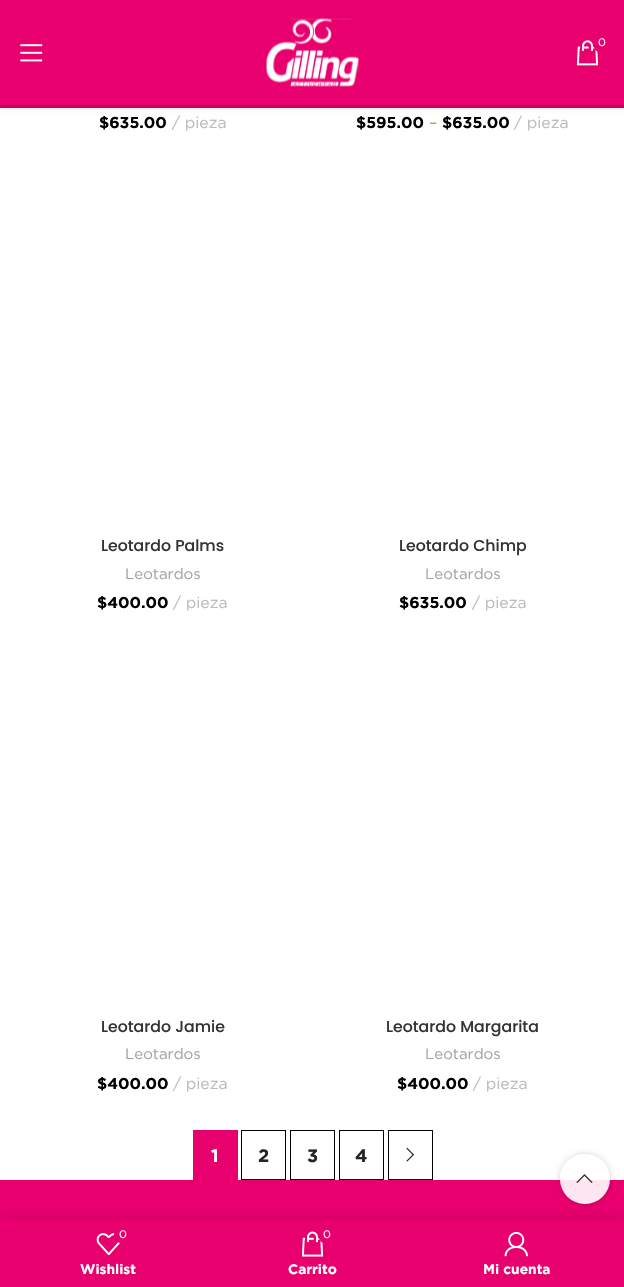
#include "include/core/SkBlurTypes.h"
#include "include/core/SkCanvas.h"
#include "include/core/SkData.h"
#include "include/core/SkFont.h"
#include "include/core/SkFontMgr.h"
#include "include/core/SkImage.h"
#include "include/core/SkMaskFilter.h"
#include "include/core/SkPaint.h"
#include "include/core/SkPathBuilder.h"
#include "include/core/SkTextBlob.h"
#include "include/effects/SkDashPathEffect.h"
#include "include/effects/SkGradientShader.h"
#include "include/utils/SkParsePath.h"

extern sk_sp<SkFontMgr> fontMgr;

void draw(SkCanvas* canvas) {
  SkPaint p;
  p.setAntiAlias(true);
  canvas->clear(SK_ColorWHITE);
  p.setColor(SkColorSetARGB(26, 0, 0, 0));
  p.setMaskFilter(SkMaskFilter::MakeBlur(kNormal_SkBlurStyle, 2));
  canvas->drawRect(SkRect::MakeLTRB(0, 1, 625, 109), p);
  p.setMaskFilter(nullptr);
  p.setColor(SkColorSetRGB(232, 0, 110));
  canvas->drawRect(SkRect::MakeLTRB(0, 0, 624, 105), p);
  p.setColor(SkColorSetRGB(196, 1, 93));
  canvas->drawRect(SkRect::MakeLTRB(0, 105, 624, 108), p);
  canvas->drawImageRect(SkImages::DeferredFromEncodedData(SkData::MakeFromFileName("images/1.png")), SkRect::MakeLTRB(266, 18, 359, 87), SkSamplingOptions());
  canvas->drawImageRect(SkImages::DeferredFromEncodedData(SkData::MakeFromFileName("images/2.png")), SkRect::MakeLTRB(576, 40, 599, 66), SkSamplingOptions());
  p.setColor(SkColorSetRGB(232, 0, 110));
  canvas->drawRoundRect(SkRect::MakeLTRB(593, 34, 611, 53), 9, 9, p);
  canvas->drawImageRect(SkImages::DeferredFromEncodedData(SkData::MakeFromFileName("images/3.png")), SkRect::MakeLTRB(20, 44, 43, 62), SkSamplingOptions());
  canvas->drawRect(SkRect::MakeLTRB(193, 1130, 238, 1180), p);
  p.setStyle(SkPaint::kStroke_Style);
  p.setStrokeWidth(1);
  p.setColor(SK_ColorBLACK);
  canvas->drawRect(SkRect::MakeLTRB(241.5f, 1130.5f, 285.5f, 1179.5f), p);
  canvas->drawRect(SkRect::MakeLTRB(290.5f, 1130.5f, 334.5f, 1179.5f), p);
  canvas->drawRect(SkRect::MakeLTRB(339.5f, 1130.5f, 383.5f, 1179.5f), p);
  canvas->drawRect(SkRect::MakeLTRB(388.5f, 1130.5f, 432.5f, 1179.5f), p);
  canvas->drawImageRect(SkImages::DeferredFromEncodedData(SkData::MakeFromFileName("images/4.png")), SkRect::MakeLTRB(406, 1147, 414, 1162), SkSamplingOptions());
  p.setStyle(SkPaint::kFill_Style);
  p.setColor(SkColorSetRGB(232, 0, 110));
  canvas->drawRect(SkRect::MakeLTRB(0, 1180, 624, 1219), p);
  canvas->save();
  canvas->clipPath(SkPathBuilder(SkPathFillType::kEvenOdd).moveTo(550, 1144).lineTo(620, 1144).lineTo(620, 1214).lineTo(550, 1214).close().moveTo(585, 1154).cubicTo(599, 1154, 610, 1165, 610, 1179).cubicTo(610, 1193, 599, 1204, 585, 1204).cubicTo(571, 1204, 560, 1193, 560, 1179).cubicTo(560, 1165, 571, 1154, 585, 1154).close().detach(), true);
  p.setColor(SkColorSetARGB(43, 0, 0, 0));
  p.setMaskFilter(SkMaskFilter::MakeBlur(kNormal_SkBlurStyle, 3));
  canvas->drawRoundRect(SkRect::MakeLTRB(560, 1154, 610, 1204), 25, 25, p);
  p.setMaskFilter(nullptr);
  canvas->restore();
  p.setColor(SkColorSetARGB(230, 255, 255, 255));
  canvas->drawCircle(585, 1179, 25, p);
  canvas->drawImageRect(SkImages::DeferredFromEncodedData(SkData::MakeFromFileName("images/5.png")), SkRect::MakeLTRB(576, 1174, 593, 1183), SkSamplingOptions());
  p.setColor(SkColorSetARGB(31, 0, 0, 0));
  p.setMaskFilter(SkMaskFilter::MakeBlur(kNormal_SkBlurStyle, 5.5f));
  canvas->drawRect(SkRect::MakeLTRB(0, 1219, 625, 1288), p);
  p.setMaskFilter(nullptr);
  p.setColor(SkColorSetRGB(232, 0, 110));
  canvas->drawRect(SkRect::MakeLTRB(0, 1219, 624, 1287), p);
  canvas->drawImageRect(SkImages::DeferredFromEncodedData(SkData::MakeFromFileName("images/6.png")), SkRect::MakeLTRB(96, 1233, 120, 1255), SkSamplingOptions());
  canvas->drawCircle(123.5f, 1234.5f, 9.5f, p);
  canvas->drawImageRect(SkImages::DeferredFromEncodedData(SkData::MakeFromFileName("images/7.png")), SkRect::MakeLTRB(301, 1231, 324, 1257), SkSamplingOptions());
  canvas->drawRoundRect(SkRect::MakeLTRB(318, 1225, 336, 1244), 9, 9, p);
  canvas->drawImageRect(SkImages::DeferredFromEncodedData(SkData::MakeFromFileName("images/8.png")), SkRect::MakeLTRB(504, 1232, 528, 1257), SkSamplingOptions());
  SkFont font1(fontMgr->matchFamilyStyle("Gotham", SkFontStyle::Normal()), 11);
  font1.setSubpixel(true);
  p.setColor(SK_ColorWHITE);
  canvas->drawString("0", 598, 46, font1, p);
  SkFont font2(fontMgr->matchFamilyStyle("Gotham", SkFontStyle::Bold()), 15.75f);
  font2.setSubpixel(true);
  p.setColor(SK_ColorBLACK);
  canvas->drawString("$635.00", 99, 128, font2, p);
  SkFont font3(fontMgr->matchFamilyStyle("Gotham", SkFontStyle::Normal()), 15.75f);
  font3.setSubpixel(true);
  p.setColor(SkColorSetRGB(187, 187, 187));
  canvas->drawString("/ pieza", 172, 128, font3, p);
  p.setColor(SK_ColorBLACK);
  canvas->drawString("$595.00", 356, 128, font2, p);
  p.setColor(SkColorSetRGB(131, 183, 53));
  canvas->drawString("–", 429, 128, font3, p);
  p.setColor(SK_ColorBLACK);
  canvas->drawString("$635.00", 442, 128, font2, p);
  p.setColor(SkColorSetRGB(187, 187, 187));
  canvas->drawString("/ pieza", 514, 128, font3, p);
  SkFont font4(fontMgr->matchFamilyStyle("Poppins", SkFontStyle(500, SkFontStyle::kNormal_Width, SkFontStyle::kUpright_Slant)), 15.75f);
  font4.setSubpixel(true);
  p.setColor(SkColorSetRGB(51, 51, 51));
  canvas->drawString("Leotardo Palms", 101, 551, font4, p);
  SkFont font5(fontMgr->matchFamilyStyle("Gotham", SkFontStyle::Normal()), 15);
  font5.setSubpixel(true);
  p.setColor(SkColorSetRGB(165, 165, 165));
  canvas->drawString("Leotardos", 125, 579, font5, p);
  p.setColor(SK_ColorBLACK);
  canvas->drawString("$400.00", 97, 608, font2, p);
  p.setColor(SkColorSetRGB(187, 187, 187));
  canvas->drawString("/ pieza", 173, 608, font3, p);
  p.setColor(SkColorSetRGB(51, 51, 51));
  canvas->drawString("Leotardo Chimp", 399, 551, font4, p);
  p.setColor(SkColorSetRGB(165, 165, 165));
  canvas->drawString("Leotardos", 425, 579, font5, p);
  p.setColor(SK_ColorBLACK);
  canvas->drawString("$635.00", 399, 608, font2, p);
  p.setColor(SkColorSetRGB(187, 187, 187));
  canvas->drawString("/ pieza", 472, 608, font3, p);
  p.setColor(SkColorSetRGB(51, 51, 51));
  canvas->drawString("Leotardo Jamie", 101, 1032, font4, p);
  p.setColor(SkColorSetRGB(165, 165, 165));
  canvas->drawString("Leotardos", 125, 1059, font5, p);
  p.setColor(SK_ColorBLACK);
  canvas->drawString("$400.00", 97, 1089, font2, p);
  p.setColor(SkColorSetRGB(187, 187, 187));
  canvas->drawString("/ pieza", 173, 1089, font3, p);
  p.setColor(SkColorSetRGB(51, 51, 51));
  canvas->drawString("Leotardo Margarita", 386, 1032, font4, p);
  p.setColor(SkColorSetRGB(165, 165, 165));
  canvas->drawString("Leotardos", 425, 1059, font5, p);
  p.setColor(SK_ColorBLACK);
  canvas->drawString("$400.00", 397, 1089, font2, p);
  p.setColor(SkColorSetRGB(187, 187, 187));
  canvas->drawString("/ pieza", 473, 1089, font3, p);
  SkFont font6(fontMgr->matchFamilyStyle("Gotham", SkFontStyle::Bold()), 18);
  font6.setSubpixel(true);
  p.setColor(SK_ColorWHITE);
  canvas->drawString("1", 211, 1162, font6, p);
  p.setColor(SkColorSetRGB(36, 36, 36));
  canvas->drawString("2", 258, 1162, font6, p);
  canvas->drawString("3", 307, 1162, font6, p);
  canvas->drawString("4", 355, 1162, font6, p);
  p.setColor(SK_ColorWHITE);
  canvas->drawString("0", 119, 1238, font1, p);
  SkFont font7(fontMgr->matchFamilyStyle("Gotham", SkFontStyle::Bold()), 13.75f);
  font7.setSubpixel(true);
  canvas->drawString("Wishlist", 80, 1274, font7, p);
  canvas->drawString("0", 323, 1238, font1, p);
  canvas->drawString("Carrito", 288, 1274, font7, p);
  canvas->drawString("Mi cuenta", 483, 1274, font7, p);
}
